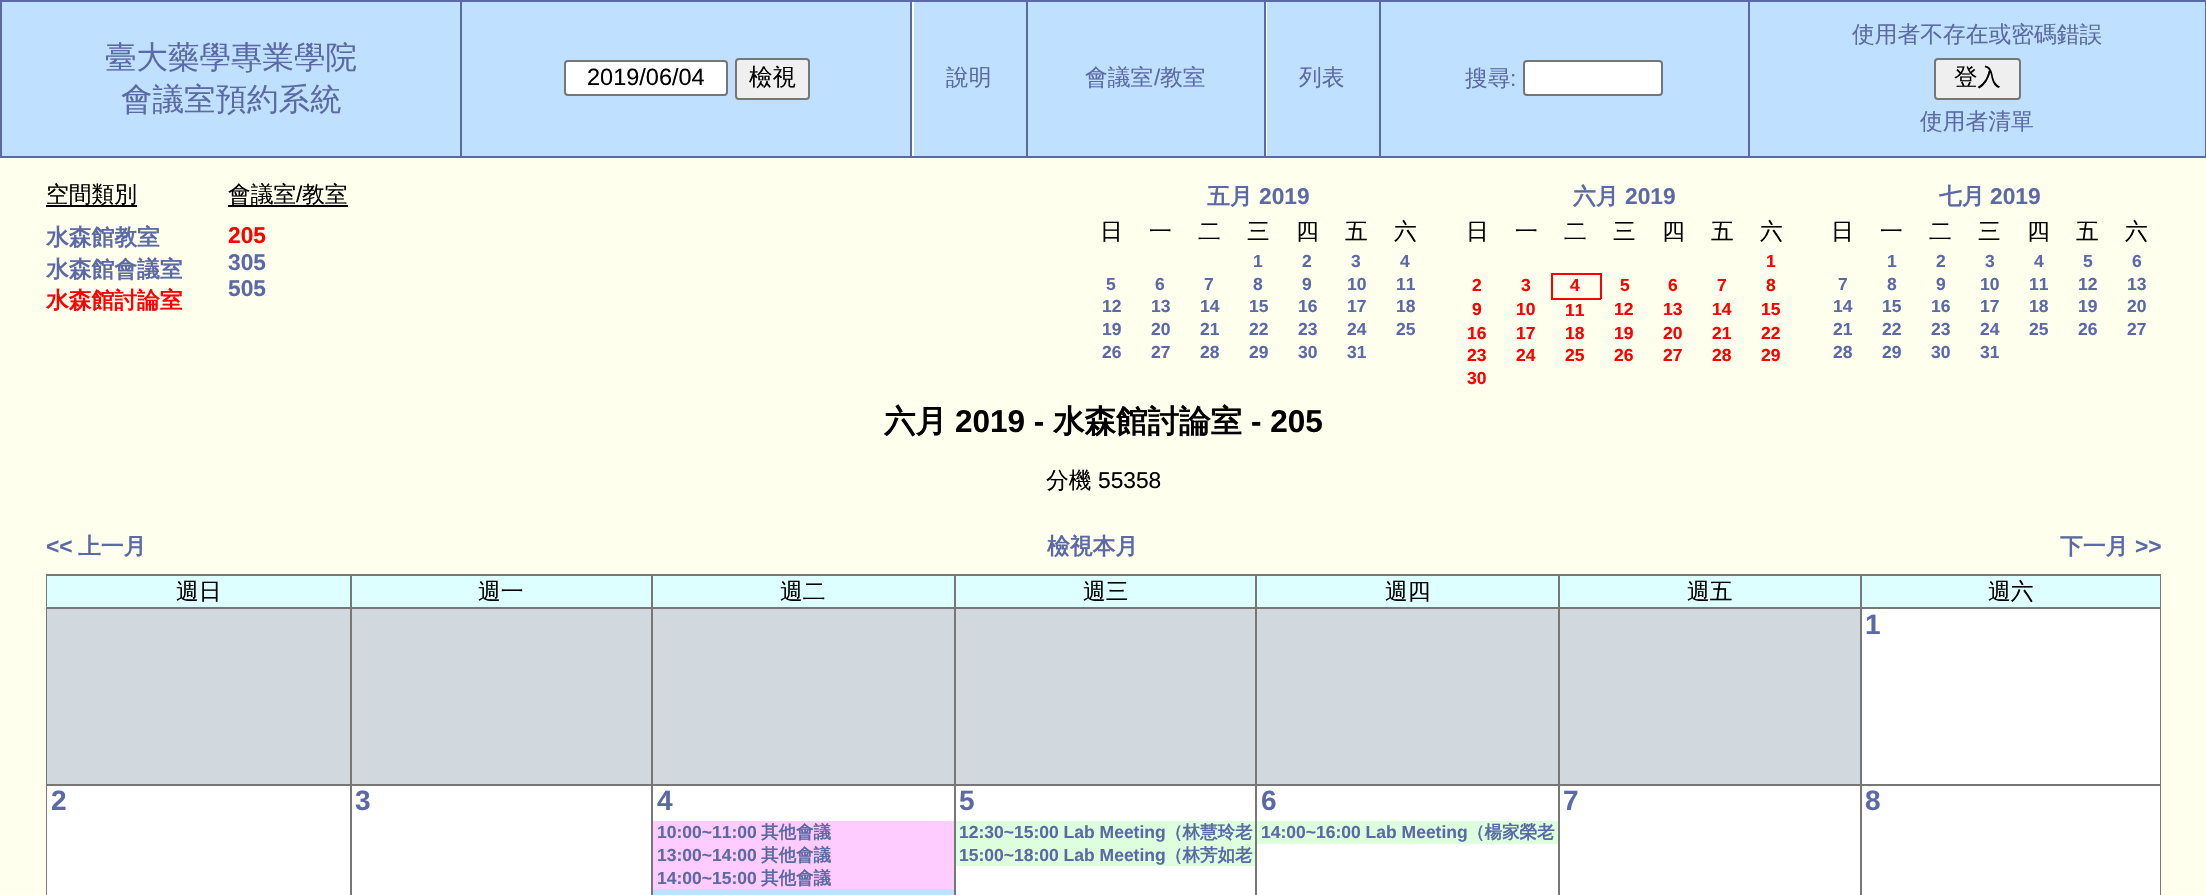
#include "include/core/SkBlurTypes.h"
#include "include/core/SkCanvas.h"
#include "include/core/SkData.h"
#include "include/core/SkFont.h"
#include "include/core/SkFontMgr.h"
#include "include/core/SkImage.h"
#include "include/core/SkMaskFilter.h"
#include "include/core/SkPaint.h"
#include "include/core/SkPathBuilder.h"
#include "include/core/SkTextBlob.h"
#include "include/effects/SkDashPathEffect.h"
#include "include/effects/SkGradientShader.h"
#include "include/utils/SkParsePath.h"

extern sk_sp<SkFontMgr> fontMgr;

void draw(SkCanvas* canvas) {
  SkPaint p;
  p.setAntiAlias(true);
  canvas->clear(SkColorSetRGB(255, 255, 237));
  p.setColor(SkColorSetRGB(91, 105, 166));
  canvas->drawRect(SkRect::MakeLTRB(0, 0, 2206, 2), p);
  canvas->drawRect(SkRect::MakeLTRB(2205, 0, 2206, 158), p);
  canvas->drawRect(SkRect::MakeLTRB(0, 156, 2206, 158), p);
  canvas->drawRect(SkRect::MakeLTRB(0, 0, 2, 158), p);
  p.setColor(SkColorSetRGB(192, 224, 255));
  canvas->drawRect(SkRect::MakeLTRB(2, 2, 460, 156), p);
  canvas->drawRect(SkRect::MakeLTRB(462, 2, 910, 156), p);
  p.setColor(SkColorSetRGB(91, 105, 166));
  canvas->drawRect(SkRect::MakeLTRB(460, 0, 462, 158), p);
  p.setColor(SK_ColorWHITE);
  canvas->drawRoundRect(SkRect::MakeLTRB(565, 61, 727, 95), 3, 3, p);
  p.setStyle(SkPaint::kStroke_Style);
  p.setStrokeWidth(2);
  p.setColor(SkColorSetRGB(118, 118, 118));
  canvas->drawRoundRect(SkRect::MakeLTRB(565, 61, 727, 95), 3, 3, p);
  p.setStyle(SkPaint::kFill_Style);
  p.setColor(SkColorSetRGB(239, 239, 239));
  canvas->drawRoundRect(SkRect::MakeLTRB(736, 59, 809, 99), 3, 3, p);
  p.setStyle(SkPaint::kStroke_Style);
  p.setColor(SkColorSetRGB(118, 118, 118));
  canvas->drawRoundRect(SkRect::MakeLTRB(736, 59, 809, 99), 3, 3, p);
  p.setStyle(SkPaint::kFill_Style);
  p.setColor(SkColorSetRGB(192, 224, 255));
  canvas->drawRect(SkRect::MakeLTRB(914, 2, 1026, 156), p);
  p.setColor(SkColorSetRGB(91, 105, 166));
  canvas->drawRect(SkRect::MakeLTRB(910, 0, 912, 158), p);
  p.setColor(SkColorSetRGB(192, 224, 255));
  canvas->drawRect(SkRect::MakeLTRB(1028, 2, 1264, 156), p);
  p.setColor(SkColorSetRGB(91, 105, 166));
  canvas->drawRect(SkRect::MakeLTRB(1026, 0, 1028, 158), p);
  p.setColor(SkColorSetRGB(192, 224, 255));
  canvas->drawRect(SkRect::MakeLTRB(1267, 2, 1379, 156), p);
  p.setColor(SkColorSetRGB(91, 105, 166));
  canvas->drawRect(SkRect::MakeLTRB(1264, 0, 1266, 158), p);
  p.setColor(SkColorSetRGB(192, 224, 255));
  canvas->drawRect(SkRect::MakeLTRB(1381, 2, 1748, 156), p);
  p.setColor(SkColorSetRGB(91, 105, 166));
  canvas->drawRect(SkRect::MakeLTRB(1379, 0, 1381, 158), p);
  p.setColor(SK_ColorWHITE);
  canvas->drawRoundRect(SkRect::MakeLTRB(1524, 61, 1662, 95), 3, 3, p);
  p.setStyle(SkPaint::kStroke_Style);
  p.setColor(SkColorSetRGB(118, 118, 118));
  canvas->drawRoundRect(SkRect::MakeLTRB(1524, 61, 1662, 95), 3, 3, p);
  p.setStyle(SkPaint::kFill_Style);
  p.setColor(SkColorSetRGB(192, 224, 255));
  canvas->drawRect(SkRect::MakeLTRB(1750, 2, 2205, 156), p);
  p.setColor(SkColorSetRGB(91, 105, 166));
  canvas->drawRect(SkRect::MakeLTRB(1748, 0, 1750, 158), p);
  p.setColor(SkColorSetRGB(239, 239, 239));
  canvas->drawRoundRect(SkRect::MakeLTRB(1935, 59, 2020, 99), 3, 3, p);
  p.setStyle(SkPaint::kStroke_Style);
  p.setColor(SkColorSetRGB(118, 118, 118));
  canvas->drawRoundRect(SkRect::MakeLTRB(1935, 59, 2020, 99), 3, 3, p);
  p.setStyle(SkPaint::kFill_Style);
  p.setColor(SK_ColorBLACK);
  canvas->drawRect(SkRect::MakeLTRB(46, 205, 137, 207), p);
  canvas->drawRect(SkRect::MakeLTRB(228, 205, 348, 207), p);
  p.setColor(SkColorSetRGB(255, 0, 0));
  canvas->drawRect(SkRect::MakeLTRB(1551, 273, 1601, 275), p);
  canvas->drawRect(SkRect::MakeLTRB(1600, 273, 1602, 299), p);
  canvas->drawRect(SkRect::MakeLTRB(1551, 298, 1601, 300), p);
  canvas->drawRect(SkRect::MakeLTRB(1551, 273, 1553, 299), p);
  p.setStyle(SkPaint::kStroke_Style);
  p.setColor(SkColorSetRGB(119, 119, 119));
  canvas->drawRect(SkRect::MakeLTRB(47, 575, 2160, 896), p);
  p.setStyle(SkPaint::kFill_Style);
  p.setColor(SkColorSetRGB(221, 255, 255));
  canvas->drawRect(SkRect::MakeLTRB(47, 576, 350, 607), p);
  canvas->drawRect(SkRect::MakeLTRB(352, 576, 651, 607), p);
  p.setColor(SkColorSetRGB(119, 119, 119));
  canvas->drawRect(SkRect::MakeLTRB(350, 576, 352, 607), p);
  p.setColor(SkColorSetRGB(221, 255, 255));
  canvas->drawRect(SkRect::MakeLTRB(653, 576, 954, 607), p);
  p.setColor(SkColorSetRGB(119, 119, 119));
  canvas->drawRect(SkRect::MakeLTRB(651, 576, 653, 607), p);
  p.setColor(SkColorSetRGB(221, 255, 255));
  canvas->drawRect(SkRect::MakeLTRB(956, 576, 1255, 607), p);
  p.setColor(SkColorSetRGB(119, 119, 119));
  canvas->drawRect(SkRect::MakeLTRB(954, 576, 956, 607), p);
  p.setColor(SkColorSetRGB(221, 255, 255));
  canvas->drawRect(SkRect::MakeLTRB(1257, 576, 1558, 607), p);
  p.setColor(SkColorSetRGB(119, 119, 119));
  canvas->drawRect(SkRect::MakeLTRB(1255, 576, 1257, 607), p);
  p.setColor(SkColorSetRGB(221, 255, 255));
  canvas->drawRect(SkRect::MakeLTRB(1560, 576, 1860, 607), p);
  p.setColor(SkColorSetRGB(119, 119, 119));
  canvas->drawRect(SkRect::MakeLTRB(1558, 576, 1560, 607), p);
  p.setColor(SkColorSetRGB(221, 255, 255));
  canvas->drawRect(SkRect::MakeLTRB(1862, 576, 2160, 607), p);
  p.setColor(SkColorSetRGB(119, 119, 119));
  canvas->drawRect(SkRect::MakeLTRB(1860, 576, 1862, 607), p);
  p.setColor(SkColorSetRGB(209, 217, 222));
  canvas->drawRect(SkRect::MakeLTRB(47, 609, 350, 784), p);
  p.setColor(SkColorSetRGB(119, 119, 119));
  canvas->drawRect(SkRect::MakeLTRB(47, 607, 2160, 609), p);
  p.setColor(SkColorSetRGB(209, 217, 222));
  canvas->drawRect(SkRect::MakeLTRB(352, 609, 651, 784), p);
  p.setColor(SkColorSetRGB(119, 119, 119));
  canvas->drawRect(SkRect::MakeLTRB(350, 607, 352, 784), p);
  p.setColor(SkColorSetRGB(209, 217, 222));
  canvas->drawRect(SkRect::MakeLTRB(653, 609, 954, 784), p);
  p.setColor(SkColorSetRGB(119, 119, 119));
  canvas->drawRect(SkRect::MakeLTRB(651, 607, 653, 784), p);
  p.setColor(SkColorSetRGB(209, 217, 222));
  canvas->drawRect(SkRect::MakeLTRB(956, 609, 1255, 784), p);
  p.setColor(SkColorSetRGB(119, 119, 119));
  canvas->drawRect(SkRect::MakeLTRB(954, 607, 956, 784), p);
  p.setColor(SkColorSetRGB(209, 217, 222));
  canvas->drawRect(SkRect::MakeLTRB(1257, 609, 1558, 784), p);
  p.setColor(SkColorSetRGB(119, 119, 119));
  canvas->drawRect(SkRect::MakeLTRB(1255, 607, 1257, 784), p);
  p.setColor(SkColorSetRGB(209, 217, 222));
  canvas->drawRect(SkRect::MakeLTRB(1560, 609, 1860, 784), p);
  p.setColor(SkColorSetRGB(119, 119, 119));
  canvas->drawRect(SkRect::MakeLTRB(1558, 607, 1560, 784), p);
  p.setColor(SK_ColorWHITE);
  canvas->drawRect(SkRect::MakeLTRB(1862, 609, 2160, 784), p);
  p.setColor(SkColorSetRGB(119, 119, 119));
  canvas->drawRect(SkRect::MakeLTRB(1860, 607, 1862, 784), p);
  p.setColor(SK_ColorWHITE);
  canvas->drawRect(SkRect::MakeLTRB(47, 786, 350, 895), p);
  p.setColor(SkColorSetRGB(119, 119, 119));
  canvas->drawRect(SkRect::MakeLTRB(47, 784, 2160, 786), p);
  p.setColor(SK_ColorWHITE);
  canvas->drawRect(SkRect::MakeLTRB(352, 786, 651, 895), p);
  p.setColor(SkColorSetRGB(119, 119, 119));
  canvas->drawRect(SkRect::MakeLTRB(350, 784, 352, 895), p);
  p.setColor(SK_ColorWHITE);
  canvas->drawRect(SkRect::MakeLTRB(653, 786, 954, 821), p);
  p.setColor(SkColorSetRGB(119, 119, 119));
  canvas->drawRect(SkRect::MakeLTRB(651, 784, 653, 895), p);
  p.setColor(SkColorSetRGB(255, 204, 255));
  canvas->drawRect(SkRect::MakeLTRB(653, 821, 954, 889), p);
  p.setColor(SkColorSetRGB(192, 224, 255));
  canvas->drawRect(SkRect::MakeLTRB(653, 889, 954, 895), p);
  p.setColor(SK_ColorWHITE);
  canvas->drawRect(SkRect::MakeLTRB(956, 786, 1255, 895), p);
  p.setColor(SkColorSetRGB(119, 119, 119));
  canvas->drawRect(SkRect::MakeLTRB(954, 784, 956, 895), p);
  p.setColor(SkColorSetRGB(221, 255, 221));
  canvas->drawRect(SkRect::MakeLTRB(956, 821, 1255, 866), p);
  p.setColor(SK_ColorWHITE);
  canvas->drawRect(SkRect::MakeLTRB(1257, 786, 1558, 895), p);
  p.setColor(SkColorSetRGB(119, 119, 119));
  canvas->drawRect(SkRect::MakeLTRB(1255, 784, 1257, 895), p);
  p.setColor(SkColorSetRGB(221, 255, 221));
  canvas->drawRect(SkRect::MakeLTRB(1257, 821, 1558, 844), p);
  p.setColor(SK_ColorWHITE);
  canvas->drawRect(SkRect::MakeLTRB(1560, 786, 1860, 895), p);
  p.setColor(SkColorSetRGB(119, 119, 119));
  canvas->drawRect(SkRect::MakeLTRB(1558, 784, 1560, 895), p);
  p.setColor(SK_ColorWHITE);
  canvas->drawRect(SkRect::MakeLTRB(1862, 786, 2160, 895), p);
  p.setColor(SkColorSetRGB(119, 119, 119));
  canvas->drawRect(SkRect::MakeLTRB(1860, 784, 1862, 895), p);
  SkFont font1(fontMgr->matchFamilyStyle("WenQuanYi Zen Hei", SkFontStyle(500, SkFontStyle::kNormal_Width, SkFontStyle::kUpright_Slant)), 31.5f);
  font1.setSubpixel(true);
  p.setColor(SkColorSetRGB(91, 105, 166));
  canvas->drawString("臺大藥學專業學院", 105, 68, font1, p);
  canvas->drawString("會議室預約系統", 121, 110, font1, p);
  SkFont font2(fontMgr->matchFamilyStyle("Liberation Sans", SkFontStyle::Normal()), 23.5f);
  font2.setSubpixel(true);
  p.setColor(SK_ColorBLACK);
  canvas->drawString("2019/06/04", 587, 85, font2, p);
  SkFont font3(fontMgr->matchFamilyStyle("WenQuanYi Zen Hei", SkFontStyle(500, SkFontStyle::kNormal_Width, SkFontStyle::kUpright_Slant)), 23.5f);
  font3.setSubpixel(true);
  canvas->drawString("檢視", 749, 85, font3, p);
  SkFont font4(fontMgr->matchFamilyStyle("WenQuanYi Zen Hei", SkFontStyle(500, SkFontStyle::kNormal_Width, SkFontStyle::kUpright_Slant)), 22.75f);
  font4.setSubpixel(true);
  p.setColor(SkColorSetRGB(91, 105, 166));
  canvas->drawString("說明", 946, 85, font4, p);
  canvas->drawString("會議室", 1085, 85, font4, p);
  SkFont font5(fontMgr->matchFamilyStyle("Liberation Sans", SkFontStyle::Normal()), 22.75f);
  font5.setSubpixel(true);
  canvas->drawString("/", 1154, 85, font5, p);
  canvas->drawString("教室", 1160, 85, font4, p);
  canvas->drawString("列表", 1299, 85, font4, p);
  canvas->drawString("搜尋", 1465, 86, font4, p);
  canvas->drawString(":", 1510, 86, font5, p);
  canvas->drawString("使用者不存在或密碼錯誤", 1852, 42, font4, p);
  p.setColor(SK_ColorBLACK);
  canvas->drawString("登入", 1954, 85, font3, p);
  p.setColor(SkColorSetRGB(91, 105, 166));
  canvas->drawString("使用者清單", 1920, 129, font4, p);
  p.setColor(SK_ColorBLACK);
  canvas->drawString("空間類別", 46, 202, font4, p);
  SkFont font6(fontMgr->matchFamilyStyle("WenQuanYi Zen Hei", SkFontStyle::Bold()), 22.75f);
  font6.setSubpixel(true);
  p.setColor(SkColorSetRGB(91, 105, 166));
  canvas->drawString("水森館教室", 46, 245, font6, p);
  canvas->drawString("水森館會議室", 46, 277, font6, p);
  p.setColor(SkColorSetRGB(255, 0, 0));
  canvas->drawString("水森館討論室", 46, 308, font6, p);
  p.setColor(SK_ColorBLACK);
  canvas->drawString("會議室", 228, 202, font4, p);
  canvas->drawString("/", 296, 202, font5, p);
  canvas->drawString("教室", 302, 202, font4, p);
  SkFont font7(fontMgr->matchFamilyStyle("Liberation Sans", SkFontStyle::Bold()), 22.75f);
  font7.setSubpixel(true);
  p.setColor(SkColorSetRGB(255, 0, 0));
  canvas->drawString("205", 228, 243, font7, p);
  p.setColor(SkColorSetRGB(91, 105, 166));
  canvas->drawString("305", 228, 270, font7, p);
  canvas->drawString("505", 228, 296, font7, p);
  canvas->drawString("五月", 1207, 204, font6, p);
  canvas->drawString("2019", 1259, 204, font7, p);
  p.setColor(SK_ColorBLACK);
  canvas->drawString("日", 1100, 239, font4, p);
  canvas->drawString("一", 1149, 239, font4, p);
  canvas->drawString("二", 1198, 239, font4, p);
  canvas->drawString("三", 1247, 239, font4, p);
  canvas->drawString("四", 1296, 239, font4, p);
  canvas->drawString("五", 1345, 239, font4, p);
  canvas->drawString("六", 1394, 239, font4, p);
  SkFont font8(fontMgr->matchFamilyStyle("Liberation Sans", SkFontStyle::Bold()), 17.5f);
  font8.setSubpixel(true);
  p.setColor(SkColorSetRGB(91, 105, 166));
  canvas->drawString("1", 1253, 267, font8, p);
  canvas->drawString("2", 1302, 267, font8, p);
  canvas->drawString("3", 1351, 267, font8, p);
  canvas->drawString("4", 1400, 267, font8, p);
  canvas->drawString("5", 1106, 290, font8, p);
  canvas->drawString("6", 1155, 290, font8, p);
  canvas->drawString("7", 1204, 290, font8, p);
  canvas->drawString("8", 1253, 290, font8, p);
  canvas->drawString("9", 1302, 290, font8, p);
  canvas->drawString("10", 1347, 290, font8, p);
  canvas->drawString("11", 1396, 290, font8, p);
  canvas->drawString("12", 1102, 312, font8, p);
  canvas->drawString("13", 1151, 312, font8, p);
  canvas->drawString("14", 1200, 312, font8, p);
  canvas->drawString("15", 1249, 312, font8, p);
  canvas->drawString("16", 1298, 312, font8, p);
  canvas->drawString("17", 1347, 312, font8, p);
  canvas->drawString("18", 1396, 312, font8, p);
  canvas->drawString("19", 1102, 335, font8, p);
  canvas->drawString("20", 1151, 335, font8, p);
  canvas->drawString("21", 1200, 335, font8, p);
  canvas->drawString("22", 1249, 335, font8, p);
  canvas->drawString("23", 1298, 335, font8, p);
  canvas->drawString("24", 1347, 335, font8, p);
  canvas->drawString("25", 1396, 335, font8, p);
  canvas->drawString("26", 1102, 358, font8, p);
  canvas->drawString("27", 1151, 358, font8, p);
  canvas->drawString("28", 1200, 358, font8, p);
  canvas->drawString("29", 1249, 358, font8, p);
  canvas->drawString("30", 1298, 358, font8, p);
  canvas->drawString("31", 1347, 358, font8, p);
  canvas->drawString("六月", 1573, 204, font6, p);
  canvas->drawString("2019", 1625, 204, font7, p);
  p.setColor(SK_ColorBLACK);
  canvas->drawString("日", 1466, 239, font4, p);
  canvas->drawString("一", 1515, 239, font4, p);
  canvas->drawString("二", 1564, 239, font4, p);
  canvas->drawString("三", 1613, 239, font4, p);
  canvas->drawString("四", 1662, 239, font4, p);
  canvas->drawString("五", 1711, 239, font4, p);
  canvas->drawString("六", 1760, 239, font4, p);
  p.setColor(SkColorSetRGB(255, 0, 0));
  canvas->drawString("1", 1766, 267, font8, p);
  canvas->drawString("2", 1472, 291, font8, p);
  canvas->drawString("3", 1521, 291, font8, p);
  canvas->drawString("4", 1570, 291, font8, p);
  canvas->drawString("5", 1620, 291, font8, p);
  canvas->drawString("6", 1668, 291, font8, p);
  canvas->drawString("7", 1717, 291, font8, p);
  canvas->drawString("8", 1766, 291, font8, p);
  canvas->drawString("9", 1472, 315, font8, p);
  canvas->drawString("10", 1516, 315, font8, p);
  canvas->drawString("11", 1565, 316, font8, p);
  canvas->drawString("12", 1614, 315, font8, p);
  canvas->drawString("13", 1663, 315, font8, p);
  canvas->drawString("14", 1712, 315, font8, p);
  canvas->drawString("15", 1761, 315, font8, p);
  canvas->drawString("16", 1467, 339, font8, p);
  canvas->drawString("17", 1516, 339, font8, p);
  canvas->drawString("18", 1565, 339, font8, p);
  canvas->drawString("19", 1614, 339, font8, p);
  canvas->drawString("20", 1663, 339, font8, p);
  canvas->drawString("21", 1712, 339, font8, p);
  canvas->drawString("22", 1761, 339, font8, p);
  canvas->drawString("23", 1467, 361, font8, p);
  canvas->drawString("24", 1516, 361, font8, p);
  canvas->drawString("25", 1565, 361, font8, p);
  canvas->drawString("26", 1614, 361, font8, p);
  canvas->drawString("27", 1663, 361, font8, p);
  canvas->drawString("28", 1712, 361, font8, p);
  canvas->drawString("29", 1761, 361, font8, p);
  canvas->drawString("30", 1467, 384, font8, p);
  p.setColor(SkColorSetRGB(91, 105, 166));
  canvas->drawString("七月", 1939, 204, font6, p);
  canvas->drawString("2019", 1990, 204, font7, p);
  p.setColor(SK_ColorBLACK);
  canvas->drawString("日", 1831, 239, font4, p);
  canvas->drawString("一", 1880, 239, font4, p);
  canvas->drawString("二", 1929, 239, font4, p);
  canvas->drawString("三", 1978, 239, font4, p);
  canvas->drawString("四", 2027, 239, font4, p);
  canvas->drawString("五", 2076, 239, font4, p);
  canvas->drawString("六", 2125, 239, font4, p);
  p.setColor(SkColorSetRGB(91, 105, 166));
  canvas->drawString("1", 1887, 267, font8, p);
  canvas->drawString("2", 1936, 267, font8, p);
  canvas->drawString("3", 1985, 267, font8, p);
  canvas->drawString("4", 2034, 267, font8, p);
  canvas->drawString("5", 2083, 267, font8, p);
  canvas->drawString("6", 2132, 267, font8, p);
  canvas->drawString("7", 1838, 290, font8, p);
  canvas->drawString("8", 1887, 290, font8, p);
  canvas->drawString("9", 1936, 290, font8, p);
  canvas->drawString("10", 1980, 290, font8, p);
  canvas->drawString("11", 2029, 290, font8, p);
  canvas->drawString("12", 2078, 290, font8, p);
  canvas->drawString("13", 2127, 290, font8, p);
  canvas->drawString("14", 1833, 312, font8, p);
  canvas->drawString("15", 1882, 312, font8, p);
  canvas->drawString("16", 1931, 312, font8, p);
  canvas->drawString("17", 1980, 312, font8, p);
  canvas->drawString("18", 2029, 312, font8, p);
  canvas->drawString("19", 2078, 312, font8, p);
  canvas->drawString("20", 2127, 312, font8, p);
  canvas->drawString("21", 1833, 335, font8, p);
  canvas->drawString("22", 1882, 335, font8, p);
  canvas->drawString("23", 1931, 335, font8, p);
  canvas->drawString("24", 1980, 335, font8, p);
  canvas->drawString("25", 2029, 335, font8, p);
  canvas->drawString("26", 2078, 335, font8, p);
  canvas->drawString("27", 2127, 335, font8, p);
  canvas->drawString("28", 1833, 358, font8, p);
  canvas->drawString("29", 1882, 358, font8, p);
  canvas->drawString("30", 1931, 358, font8, p);
  canvas->drawString("31", 1980, 358, font8, p);
  SkFont font9(fontMgr->matchFamilyStyle("WenQuanYi Zen Hei", SkFontStyle::Bold()), 31.5f);
  font9.setSubpixel(true);
  p.setColor(SK_ColorBLACK);
  canvas->drawString("六月", 884, 432, font9, p);
  SkFont font10(fontMgr->matchFamilyStyle("Liberation Sans", SkFontStyle::Bold()), 31.5f);
  font10.setSubpixel(true);
  canvas->drawString("2019 -", 955, 432, font10, p);
  canvas->drawString("水森館討論室", 1053, 432, font9, p);
  canvas->drawString("- 205", 1251, 432, font10, p);
  canvas->drawString("分機", 1046, 488, font4, p);
  canvas->drawString("55358", 1098, 488, font5, p);
  p.setColor(SkColorSetRGB(91, 105, 166));
  canvas->drawString("<<", 46, 554, font7, p);
  canvas->drawString("上一月", 78, 554, font6, p);
  canvas->drawString("檢視本月", 1047, 554, font6, p);
  canvas->drawString("下一月", 2060, 554, font6, p);
  canvas->drawString(">>", 2135, 554, font7, p);
  p.setColor(SK_ColorBLACK);
  canvas->drawString("週日", 176, 599, font4, p);
  canvas->drawString("週一", 478, 599, font4, p);
  canvas->drawString("週二", 780, 599, font4, p);
  canvas->drawString("週三", 1083, 599, font4, p);
  canvas->drawString("週四", 1385, 599, font4, p);
  canvas->drawString("週五", 1687, 599, font4, p);
  canvas->drawString("週六", 1988, 599, font4, p);
  SkFont font11(fontMgr->matchFamilyStyle("Liberation Sans", SkFontStyle::Bold()), 28);
  font11.setSubpixel(true);
  p.setColor(SkColorSetRGB(91, 105, 166));
  canvas->drawString("1", 1865, 634, font11, p);
  canvas->drawString("2", 51, 810, font11, p);
  canvas->drawString("3", 355, 810, font11, p);
  canvas->drawString("4", 657, 810, font11, p);
  canvas->drawString("10:00~11:00", 657, 838, font8, p);
  SkFont font12(fontMgr->matchFamilyStyle("WenQuanYi Zen Hei", SkFontStyle::Bold()), 17.5f);
  font12.setSubpixel(true);
  canvas->drawString("其他會議", 761, 838, font12, p);
  canvas->drawString("13:00~14:00", 657, 861, font8, p);
  canvas->drawString("其他會議", 761, 861, font12, p);
  canvas->drawString("14:00~15:00", 657, 884, font8, p);
  canvas->drawString("其他會議", 761, 884, font12, p);
  canvas->drawString("5", 959, 810, font11, p);
  canvas->drawString("12:30~15:00 Lab Meeting", 959, 838, font8, p);
  canvas->drawString("（林慧玲老", 1165, 838, font12, p);
  canvas->drawString("15:00~18:00 Lab Meeting", 959, 861, font8, p);
  canvas->drawString("（林芳如老", 1165, 861, font12, p);
  canvas->drawString("6", 1261, 810, font11, p);
  canvas->drawString("14:00~16:00 Lab Meeting", 1261, 838, font8, p);
  canvas->drawString("（楊家榮老", 1467, 838, font12, p);
  canvas->drawString("7", 1563, 810, font11, p);
  canvas->drawString("8", 1865, 810, font11, p);
}
